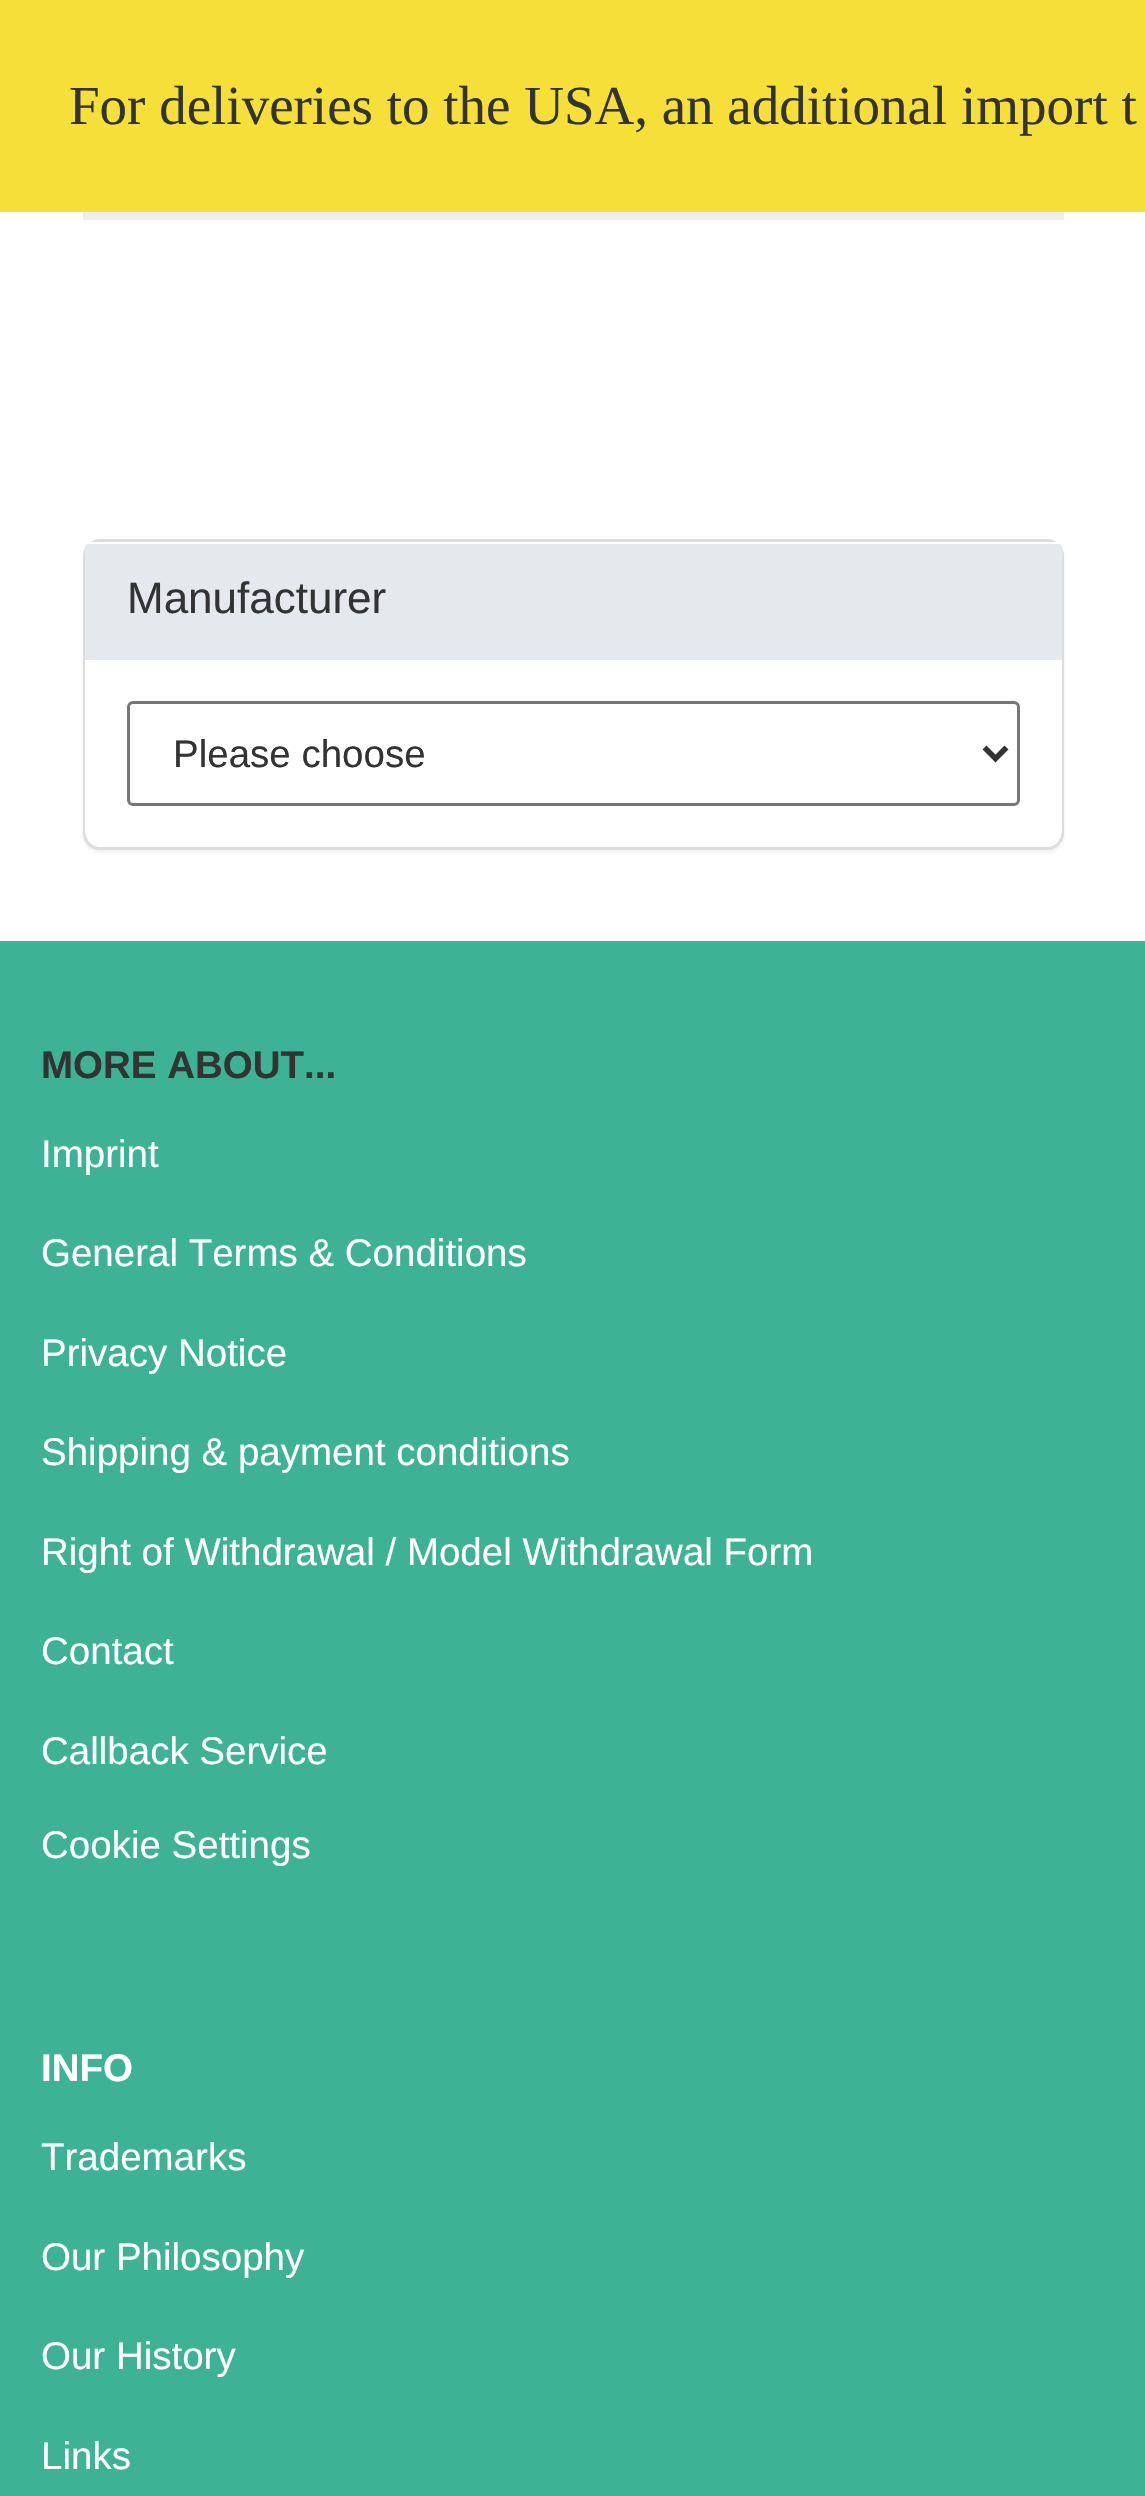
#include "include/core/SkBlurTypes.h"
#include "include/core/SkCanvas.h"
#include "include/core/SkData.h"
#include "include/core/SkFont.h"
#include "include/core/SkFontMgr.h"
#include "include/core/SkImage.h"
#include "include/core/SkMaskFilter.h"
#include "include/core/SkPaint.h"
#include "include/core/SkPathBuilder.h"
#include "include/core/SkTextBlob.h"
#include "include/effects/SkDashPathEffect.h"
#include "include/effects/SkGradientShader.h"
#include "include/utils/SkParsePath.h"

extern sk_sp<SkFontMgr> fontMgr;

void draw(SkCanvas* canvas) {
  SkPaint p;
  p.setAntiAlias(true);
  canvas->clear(SK_ColorWHITE);
  p.setColor(SkColorSetRGB(245, 223, 56));
  canvas->drawRect(SkRect::MakeLTRB(0, 0, 1145, 212), p);
  p.setColor(SkColorSetRGB(238, 238, 238));
  canvas->drawRect(SkRect::MakeLTRB(83, 212, 1064, 220), p);
  p.setColor(SkColorSetARGB(13, 0, 0, 0));
  p.setMaskFilter(SkMaskFilter::MakeBlur(kNormal_SkBlurStyle, 1.5f));
  canvas->drawRoundRect(SkRect::MakeLTRB(83, 542, 1064, 853), 17, 17, p);
  p.setMaskFilter(nullptr);
  p.setColor(SK_ColorWHITE);
  canvas->drawRoundRect(SkRect::MakeLTRB(84.5f, 540.5f, 1062.5f, 848.5f), 15.5f, 15.5f, p);
  p.setStyle(SkPaint::kStroke_Style);
  p.setStrokeWidth(3);
  p.setColor(SkColorSetRGB(221, 221, 221));
  canvas->drawRoundRect(SkRect::MakeLTRB(84.5f, 540.5f, 1062.5f, 848.5f), 15.5f, 15.5f, p);
  p.setStyle(SkPaint::kFill_Style);
  p.setColor(SkColorSetRGB(229, 232, 237));
  canvas->drawPath(SkPathBuilder().moveTo(88, 542).lineTo(1059, 542).cubicTo(1060.5f, 542, 1062, 543.5f, 1062, 545).lineTo(1062, 660).lineTo(85, 660).lineTo(85, 545).cubicTo(85, 543.5f, 86.5f, 542, 88, 542).close().detach(), p);
  p.setColor(SK_ColorWHITE);
  canvas->drawPath(SkPathBuilder().moveTo(88, 544).lineTo(1059, 544).cubicTo(1060, 544, 1062, 546, 1062, 547).lineTo(1062, 545).cubicTo(1062, 543, 1061, 542, 1059, 542).lineTo(88, 542).cubicTo(86, 542, 85, 543, 85, 545).lineTo(85, 547).cubicTo(85, 546, 86, 544, 88, 544).close().detach(), p);
  canvas->drawPath(SkPathBuilder().moveTo(85, 660).lineTo(1062, 660).lineTo(1062, 830).cubicTo(1062, 839.5f, 1054.5f, 847, 1045, 847).lineTo(102, 847).cubicTo(92.5f, 847, 85, 839.5f, 85, 830).close().detach(), p);
  p.setStyle(SkPaint::kStroke_Style);
  p.setColor(SkColorSetRGB(118, 118, 118));
  canvas->drawRoundRect(SkRect::MakeLTRB(128.5f, 702.5f, 1018.5f, 804.5f), 4.5f, 4.5f, p);
  p.setStrokeWidth(5.5f);
  p.setColor(SkColorSetRGB(51, 51, 51));
  canvas->drawPath(SkPathBuilder().moveTo(984.5f, 747.5f).lineTo(995.5f, 758.5f).lineTo(1006.5f, 747.5f).detach(), p);
  p.setStyle(SkPaint::kFill_Style);
  p.setColor(SkColorSetRGB(62, 178, 148));
  canvas->drawRect(SkRect::MakeLTRB(0, 941, 1145, 2496), p);
  SkFont font1(fontMgr->matchFamilyStyle("Liberation Serif", SkFontStyle::Normal()), 55);
  font1.setSubpixel(true);
  p.setColor(SkColorSetRGB(51, 51, 51));
  canvas->drawString("For deliveries to the USA, an additional import t", 69, 124, font1, p);
  SkFont font2(fontMgr->matchFamilyStyle("Liberation Sans", SkFontStyle::Normal()), 44);
  font2.setSubpixel(true);
  canvas->drawString("Manufacturer", 127, 613, font2, p);
  SkFont font3(fontMgr->matchFamilyStyle("Liberation Sans", SkFontStyle::Normal()), 38.5f);
  font3.setSubpixel(true);
  canvas->drawString("Please choose", 173, 767, font3, p);
  SkFont font4(fontMgr->matchFamilyStyle("Liberation Sans", SkFontStyle::Bold()), 38.5f);
  font4.setSubpixel(true);
  canvas->drawString("MORE ABOUT...", 41, 1078, font4, p);
  p.setColor(SK_ColorWHITE);
  canvas->drawString("Imprint", 41, 1167, font3, p);
  canvas->drawString("General Terms & Conditions", 41, 1266, font3, p);
  canvas->drawString("Privacy Notice", 41, 1366, font3, p);
  canvas->drawString("Shipping & payment conditions", 41, 1465, font3, p);
  canvas->drawString("Right of Withdrawal / Model Withdrawal Form", 41, 1565, font3, p);
  canvas->drawString("Contact", 41, 1664, font3, p);
  canvas->drawString("Callback Service", 41, 1764, font3, p);
  canvas->drawString("Cookie Settings", 41, 1858, font3, p);
  canvas->drawString("INFO", 41, 2081, font4, p);
  canvas->drawString("Trademarks", 41, 2170, font3, p);
  canvas->drawString("Our Philosophy", 41, 2270, font3, p);
  canvas->drawString("Our History", 41, 2369, font3, p);
  canvas->drawString("Links", 41, 2469, font3, p);
}
